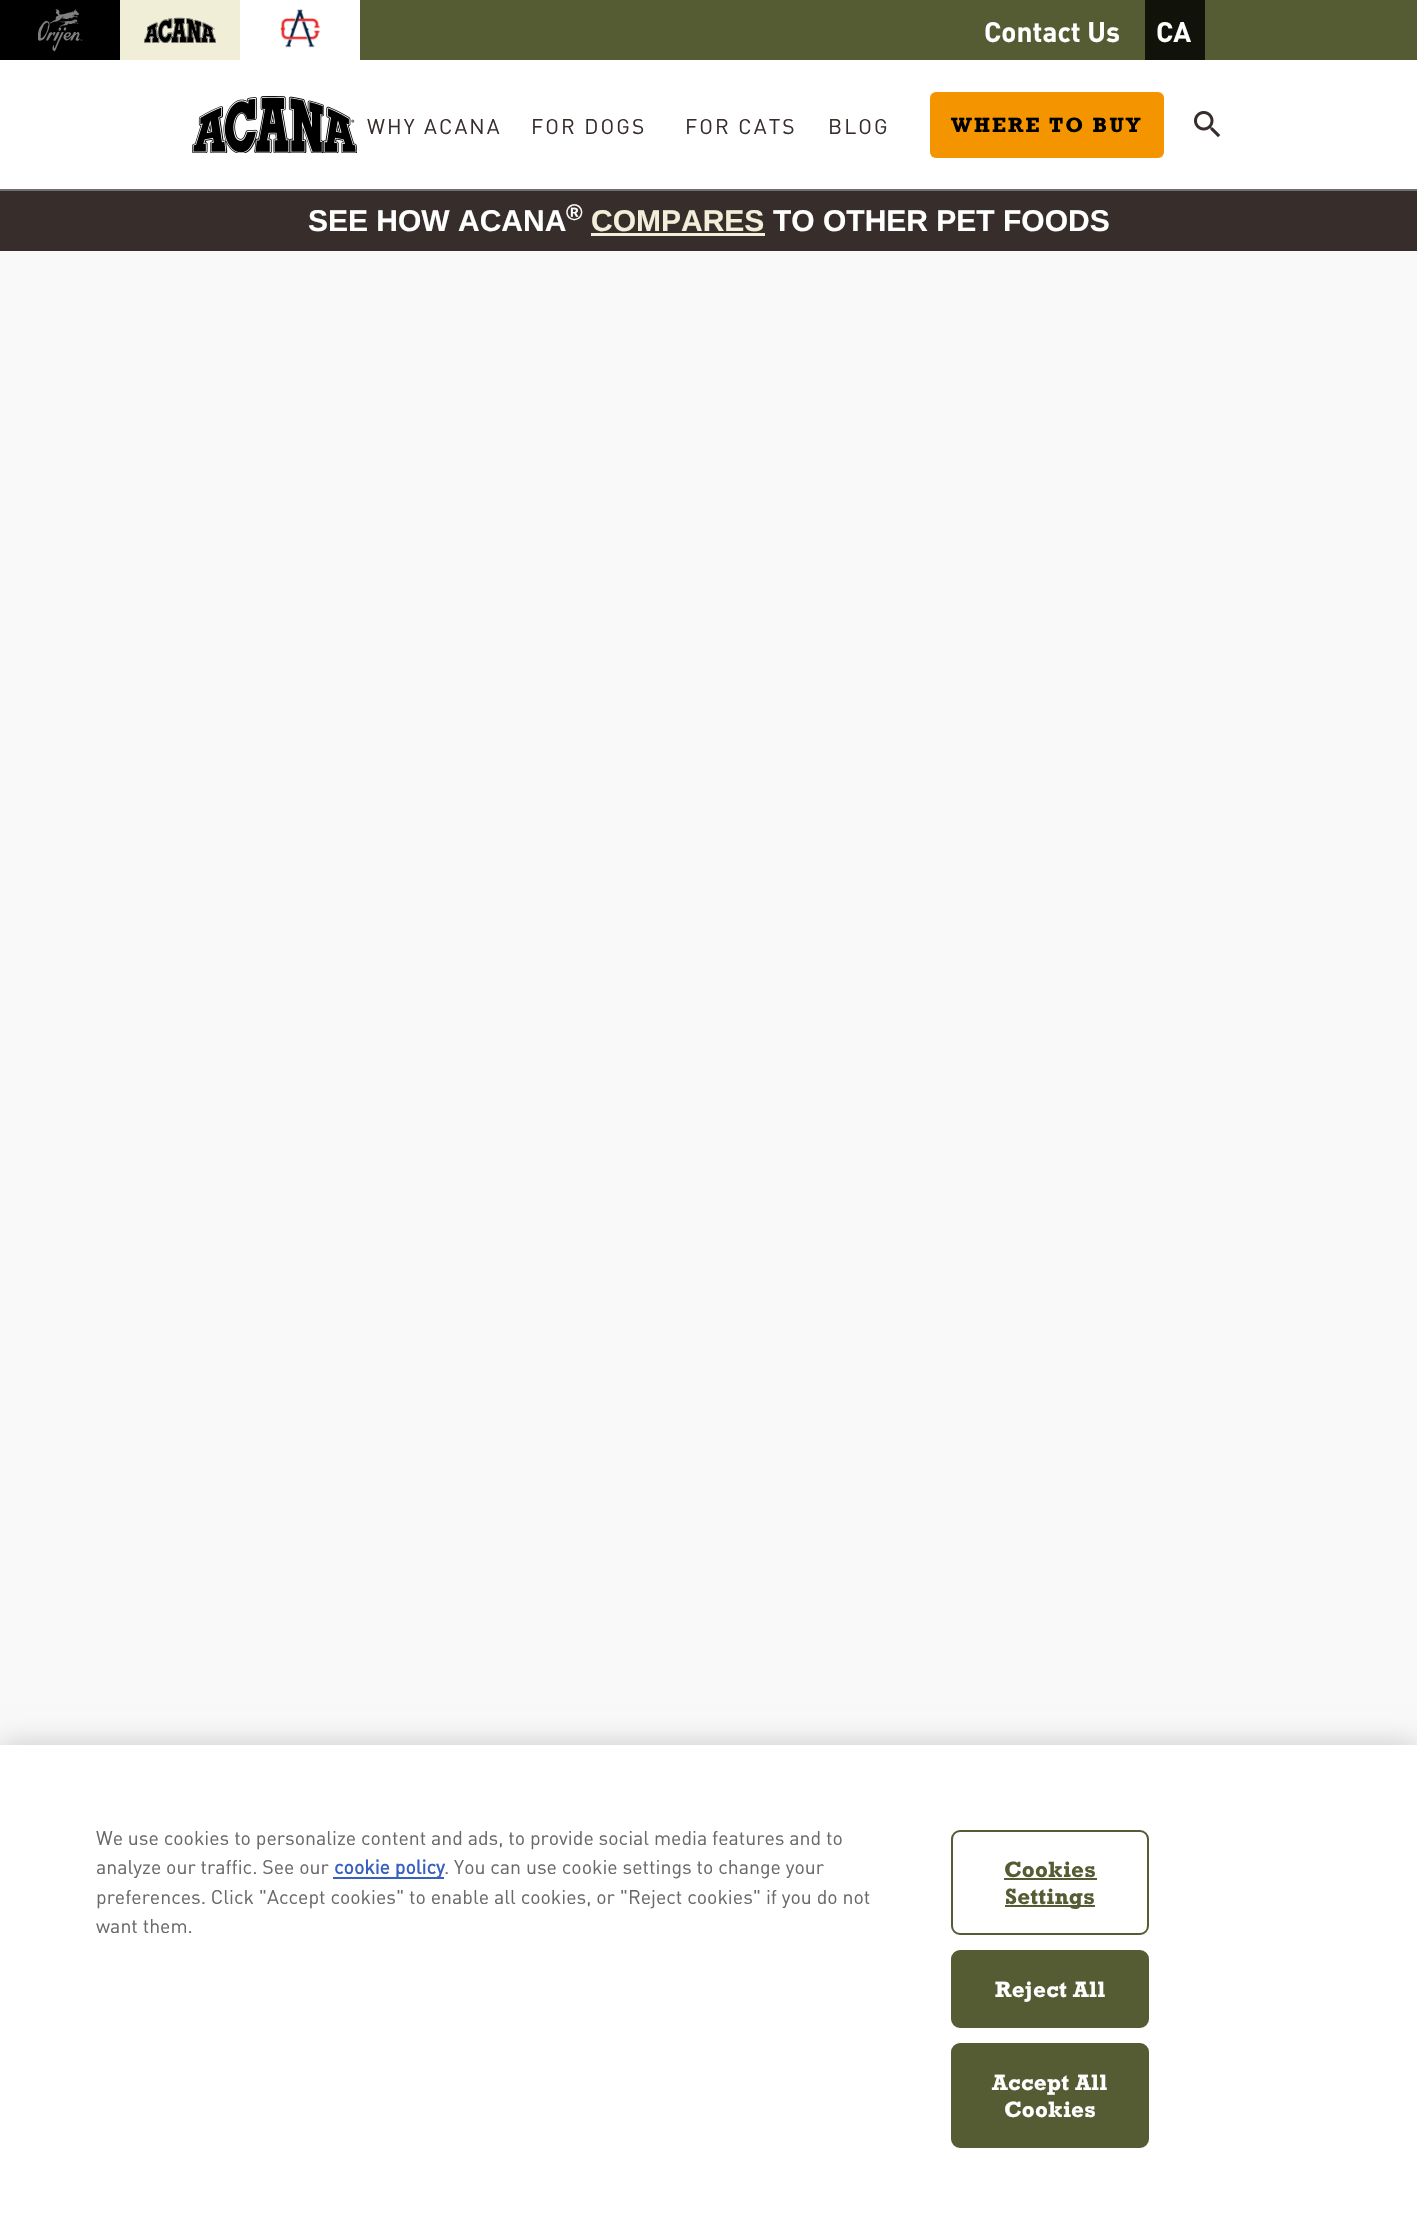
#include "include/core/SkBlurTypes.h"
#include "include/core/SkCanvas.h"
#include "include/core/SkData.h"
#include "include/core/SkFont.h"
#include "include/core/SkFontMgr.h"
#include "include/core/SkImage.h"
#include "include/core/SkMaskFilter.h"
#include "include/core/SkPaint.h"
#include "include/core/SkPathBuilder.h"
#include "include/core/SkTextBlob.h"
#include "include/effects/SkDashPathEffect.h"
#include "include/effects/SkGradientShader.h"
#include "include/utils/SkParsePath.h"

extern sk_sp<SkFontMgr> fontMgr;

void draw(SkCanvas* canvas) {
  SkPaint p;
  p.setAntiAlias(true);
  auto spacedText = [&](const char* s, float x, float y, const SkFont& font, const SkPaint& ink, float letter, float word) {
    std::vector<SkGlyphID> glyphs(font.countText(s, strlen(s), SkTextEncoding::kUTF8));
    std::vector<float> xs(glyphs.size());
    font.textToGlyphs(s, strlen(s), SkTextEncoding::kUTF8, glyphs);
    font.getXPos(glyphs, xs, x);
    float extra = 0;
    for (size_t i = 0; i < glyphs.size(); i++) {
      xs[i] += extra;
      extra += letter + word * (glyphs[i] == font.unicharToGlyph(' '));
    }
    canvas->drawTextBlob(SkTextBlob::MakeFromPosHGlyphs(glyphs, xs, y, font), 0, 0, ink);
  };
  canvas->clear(SkColorSetRGB(249, 249, 249));
  p.setColor(SkColorSetRGB(85, 91, 51));
  canvas->drawRect(SkRect::MakeLTRB(360, 0, 1417, 60), p);
  p.setColor(SK_ColorBLACK);
  canvas->drawRect(SkRect::MakeLTRB(0, 0, 120, 60), p);
  canvas->drawImageRect(SkImages::DeferredFromEncodedData(SkData::MakeFromFileName("images/1.png")), SkRect::MakeLTRB(38, 9, 83, 52), SkSamplingOptions());
  p.setColor(SkColorSetRGB(241, 238, 216));
  canvas->drawRect(SkRect::MakeLTRB(120, 0, 240, 60), p);
  canvas->drawImageRect(SkImages::DeferredFromEncodedData(SkData::MakeFromFileName("images/2.png")), SkRect::MakeLTRB(144, 17, 216, 43), SkSamplingOptions());
  p.setColor(SK_ColorWHITE);
  canvas->drawRect(SkRect::MakeLTRB(240, 0, 360, 60), p);
  canvas->drawImageRect(SkImages::DeferredFromEncodedData(SkData::MakeFromFileName("images/3.png")), SkRect::MakeLTRB(280, 9, 320, 48), SkSamplingOptions());
  p.setColor(SkColorSetRGB(17, 18, 10));
  canvas->drawRect(SkRect::MakeLTRB(1145, 0, 1205, 60), p);
  p.setColor(SK_ColorWHITE);
  canvas->drawRect(SkRect::MakeLTRB(0, 60, 1417, 189), p);
  p.setColor(SkColorSetRGB(112, 112, 112));
  canvas->drawRect(SkRect::MakeLTRB(0, 189, 1417, 191), p);
  canvas->drawImageRect(SkImages::DeferredFromEncodedData(SkData::MakeFromFileName("images/4.png")), SkRect::MakeLTRB(192, 96, 357, 153), SkSamplingOptions());
  p.setColor(SkColorSetRGB(244, 149, 0));
  canvas->drawRoundRect(SkRect::MakeLTRB(930, 92, 1164, 158), 6, 6, p);
  canvas->drawImageRect(SkImages::DeferredFromEncodedData(SkData::MakeFromFileName("images/5.png")), SkRect::MakeLTRB(1194, 111, 1221, 138), SkSamplingOptions());
  p.setColor(SkColorSetRGB(55, 46, 44));
  canvas->drawRect(SkRect::MakeLTRB(0, 191, 1417, 251), p);
  p.setColor(SkColorSetRGB(241, 239, 217));
  canvas->drawRect(SkRect::MakeLTRB(591, 233, 765, 236), p);
  p.setColor(SkColorSetARGB(51, 0, 0, 0));
  p.setMaskFilter(SkMaskFilter::MakeBlur(kNormal_SkBlurStyle, 13.5f));
  canvas->drawRect(SkRect::MakeLTRB(0, 1745, 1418, 2226), p);
  p.setMaskFilter(nullptr);
  p.setColor(SK_ColorWHITE);
  canvas->drawRect(SkRect::MakeLTRB(0, 1745, 1417, 2226), p);
  p.setColor(SkColorSetRGB(56, 96, 190));
  canvas->drawRect(SkRect::MakeLTRB(333, 1877, 444, 1879), p);
  p.setStyle(SkPaint::kStroke_Style);
  p.setStrokeWidth(2);
  p.setColor(SkColorSetRGB(85, 91, 51));
  canvas->drawRoundRect(SkRect::MakeLTRB(952, 1831, 1148, 1934), 8, 8, p);
  p.setStyle(SkPaint::kFill_Style);
  canvas->drawRect(SkRect::MakeLTRB(1004, 1878, 1097, 1880), p);
  canvas->drawRect(SkRect::MakeLTRB(1005, 1905, 1095, 1907), p);
  canvas->drawRoundRect(SkRect::MakeLTRB(952, 1951, 1148, 2027), 8, 8, p);
  p.setStyle(SkPaint::kStroke_Style);
  canvas->drawRoundRect(SkRect::MakeLTRB(952, 1951, 1148, 2027), 8, 8, p);
  p.setStyle(SkPaint::kFill_Style);
  canvas->drawRoundRect(SkRect::MakeLTRB(952, 2044, 1148, 2147), 8, 8, p);
  p.setStyle(SkPaint::kStroke_Style);
  canvas->drawRoundRect(SkRect::MakeLTRB(952, 2044, 1148, 2147), 8, 8, p);
  SkFont font1(fontMgr->matchFamilyStyle("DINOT", SkFontStyle::Bold()), 28);
  font1.setSubpixel(true);
  p.setStyle(SkPaint::kFill_Style);
  p.setColor(SK_ColorWHITE);
  canvas->drawString("Contact Us", 984, 42, font1, p);
  canvas->drawString("CA", 1156, 42, font1, p);
  SkFont font2(fontMgr->matchFamilyStyle("DINOT", SkFontStyle::Normal()), 21);
  font2.setSubpixel(true);
  p.setColor(SkColorSetRGB(55, 46, 44));
  spacedText("WHY ACANA", 367, 134, font2, p, 2.1f, 0);
  spacedText("FOR DOGS", 531, 134, font2, p, 2.1f, 0);
  spacedText("FOR CATS", 685, 134, font2, p, 2.1f, 0);
  spacedText("BLOG", 828, 134, font2, p, 2.1f, 0);
  SkFont font3(fontMgr->matchFamilyStyle("Rockwell", SkFontStyle::Bold()), 21);
  font3.setSubpixel(true);
  p.setColor(SK_ColorBLACK);
  spacedText("WHERE TO BUY", 951, 132, font3, p, 2.1f, 0);
  SkFont font4(fontMgr->matchFamilyStyle("Liberation Sans", SkFontStyle::Bold()), 30);
  font4.setSubpixel(true);
  p.setColor(SK_ColorWHITE);
  canvas->drawString("SEE HOW ACANA", 308, 231, font4, p);
  SkFont font5(fontMgr->matchFamilyStyle("Liberation Sans", SkFontStyle::Bold()), 22.5f);
  font5.setSubpixel(true);
  canvas->drawString("®", 566, 220, font5, p);
  p.setColor(SkColorSetRGB(241, 239, 217));
  canvas->drawString("COMPARES", 591, 231, font4, p);
  p.setColor(SK_ColorWHITE);
  canvas->drawString("TO OTHER PET FOODS", 773, 231, font4, p);
  SkFont font6(fontMgr->matchFamilyStyle("DINOT", SkFontStyle::Normal()), 19.5f);
  font6.setSubpixel(true);
  p.setColor(SkColorSetRGB(105, 105, 105));
  canvas->drawString("We use cookies to personalize content and ads, to provide social media features and to", 96, 1845, font6, p);
  canvas->drawString("analyze our traffic. See our", 96, 1874, font6, p);
  SkFont font7(fontMgr->matchFamilyStyle("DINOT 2", SkFontStyle::Bold()), 19.5f);
  font7.setSubpixel(true);
  p.setColor(SkColorSetRGB(56, 96, 190));
  canvas->drawString("cookie policy", 334, 1874, font7, p);
  p.setColor(SkColorSetRGB(105, 105, 105));
  canvas->drawString(". You can use cookie settings to change your", 444, 1874, font6, p);
  canvas->drawString("preferences. Click \"Accept cookies\" to enable all cookies, or \"Reject cookies\" if you do not", 96, 1904, font6, p);
  canvas->drawString("want them.", 96, 1933, font6, p);
  SkFont font8(fontMgr->matchFamilyStyle("Rockwell", SkFontStyle::Bold()), 22.5f);
  font8.setSubpixel(true);
  p.setColor(SkColorSetRGB(85, 91, 51));
  spacedText("Cookies", 1004, 1877, font8, p, 0.25f, 0);
  spacedText("Settings", 1005, 1904, font8, p, 0.25f, 0);
  p.setColor(SK_ColorWHITE);
  spacedText("Reject All", 995, 1997, font8, p, 0.25f, 0);
  spacedText("Accept All", 992, 2090, font8, p, 0.25f, 0);
  spacedText("Cookies", 1004, 2117, font8, p, 0.25f, 0);
}
